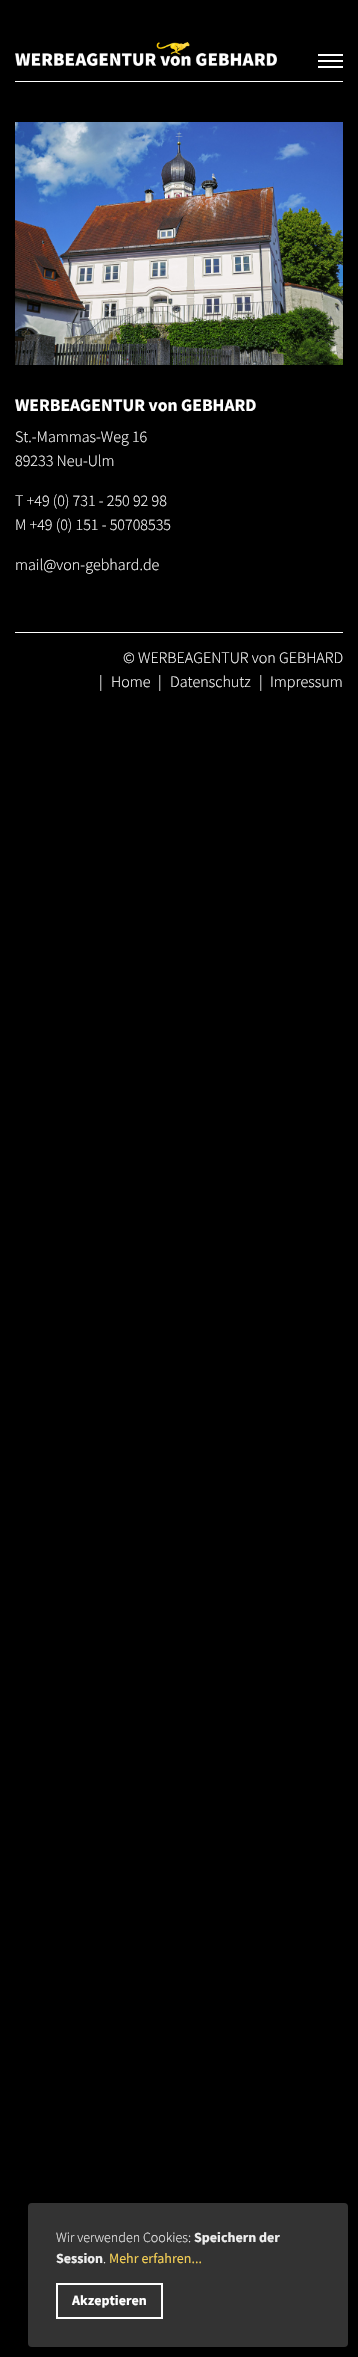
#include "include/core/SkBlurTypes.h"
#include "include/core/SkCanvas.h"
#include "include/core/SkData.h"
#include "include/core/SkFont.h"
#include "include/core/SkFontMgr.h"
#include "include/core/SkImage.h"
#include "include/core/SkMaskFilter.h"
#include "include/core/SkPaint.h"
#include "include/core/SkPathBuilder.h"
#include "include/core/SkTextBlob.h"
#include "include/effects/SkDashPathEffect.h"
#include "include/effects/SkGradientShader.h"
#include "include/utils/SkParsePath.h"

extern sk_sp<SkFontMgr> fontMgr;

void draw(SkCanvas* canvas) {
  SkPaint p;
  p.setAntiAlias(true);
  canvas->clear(SK_ColorBLACK);
  p.setColor(SK_ColorWHITE);
  canvas->drawRect(SkRect::MakeLTRB(15, 81, 343, 82), p);
  canvas->drawImageRect(SkImages::DeferredFromEncodedData(SkData::MakeFromFileName("images/1.png")), SkRect::MakeLTRB(15, 42, 277, 66), SkSamplingOptions());
  canvas->drawRect(SkRect::MakeLTRB(318, 54, 343, 56), p);
  canvas->drawRect(SkRect::MakeLTRB(318, 60, 343, 62), p);
  canvas->drawRect(SkRect::MakeLTRB(318, 66, 343, 68), p);
  canvas->drawImageRect(SkImages::DeferredFromEncodedData(SkData::MakeFromFileName("images/2.png")), SkRect::MakeLTRB(15, 122, 343, 365), SkSamplingOptions());
  canvas->drawRect(SkRect::MakeLTRB(15, 632, 343, 633), p);
  p.setColor(SkColorSetRGB(51, 51, 51));
  canvas->drawRoundRect(SkRect::MakeLTRB(28, 2203, 348, 2347), 4, 4, p);
  p.setStyle(SkPaint::kStroke_Style);
  p.setStrokeWidth(2);
  p.setColor(SK_ColorWHITE);
  canvas->drawRect(SkRect::MakeLTRB(57, 2284, 162, 2318), p);
  SkFont font1(fontMgr->matchFamilyStyle("Source Sans Pro", SkFontStyle::Bold()), 17.6f);
  font1.setSubpixel(true);
  p.setStyle(SkPaint::kFill_Style);
  canvas->drawString("WERBEAGENTUR von GEBHARD", 15, 411, font1, p);
  SkFont font2(fontMgr->matchFamilyStyle("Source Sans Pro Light", SkFontStyle(300, SkFontStyle::kNormal_Width, SkFontStyle::kUpright_Slant)), 16);
  font2.setSubpixel(true);
  canvas->drawString("St.-Mammas-Weg 16", 15, 442, font2, p);
  canvas->drawString("89233 Neu-Ulm", 15, 466, font2, p);
  canvas->drawString("T +49 (0) 731 - 250 92 98", 15, 506, font2, p);
  canvas->drawString("M +49 (0) 151 - 50708535", 15, 530, font2, p);
  canvas->drawString("mail@von-gebhard.de", 15, 570, font2, p);
  canvas->drawString("© WERBEAGENTUR von GEBHARD", 123, 663, font2, p);
  canvas->drawString("|", 99, 687, font2, p);
  canvas->drawString("Home", 111, 687, font2, p);
  canvas->drawString("|", 158, 687, font2, p);
  canvas->drawString("Datenschutz", 170, 687, font2, p);
  canvas->drawString("|", 259, 687, font2, p);
  canvas->drawString("Impressum", 270, 687, font2, p);
  SkFont font3(fontMgr->matchFamilyStyle("Source Sans Pro Light", SkFontStyle(300, SkFontStyle::kNormal_Width, SkFontStyle::kUpright_Slant)), 14);
  font3.setSubpixel(true);
  p.setColor(SkColorSetRGB(238, 238, 238));
  canvas->drawString("Wir verwenden Cookies:", 56, 2242, font3, p);
  SkFont font4(fontMgr->matchFamilyStyle("Source Sans Pro", SkFontStyle::Bold()), 14);
  font4.setSubpixel(true);
  canvas->drawString("Speichern der", 194, 2242, font4, p);
  canvas->drawString("Session", 56, 2263, font4, p);
  canvas->drawString(".", 103, 2263, font3, p);
  SkFont font5(fontMgr->matchFamilyStyle("Source Sans Pro", SkFontStyle::Normal()), 14);
  font5.setSubpixel(true);
  p.setColor(SkColorSetRGB(243, 206, 85));
  canvas->drawString("Mehr erfahren...", 109, 2263, font5, p);
  p.setColor(SK_ColorWHITE);
  canvas->drawString("Akzeptieren", 72, 2305, font4, p);
}
